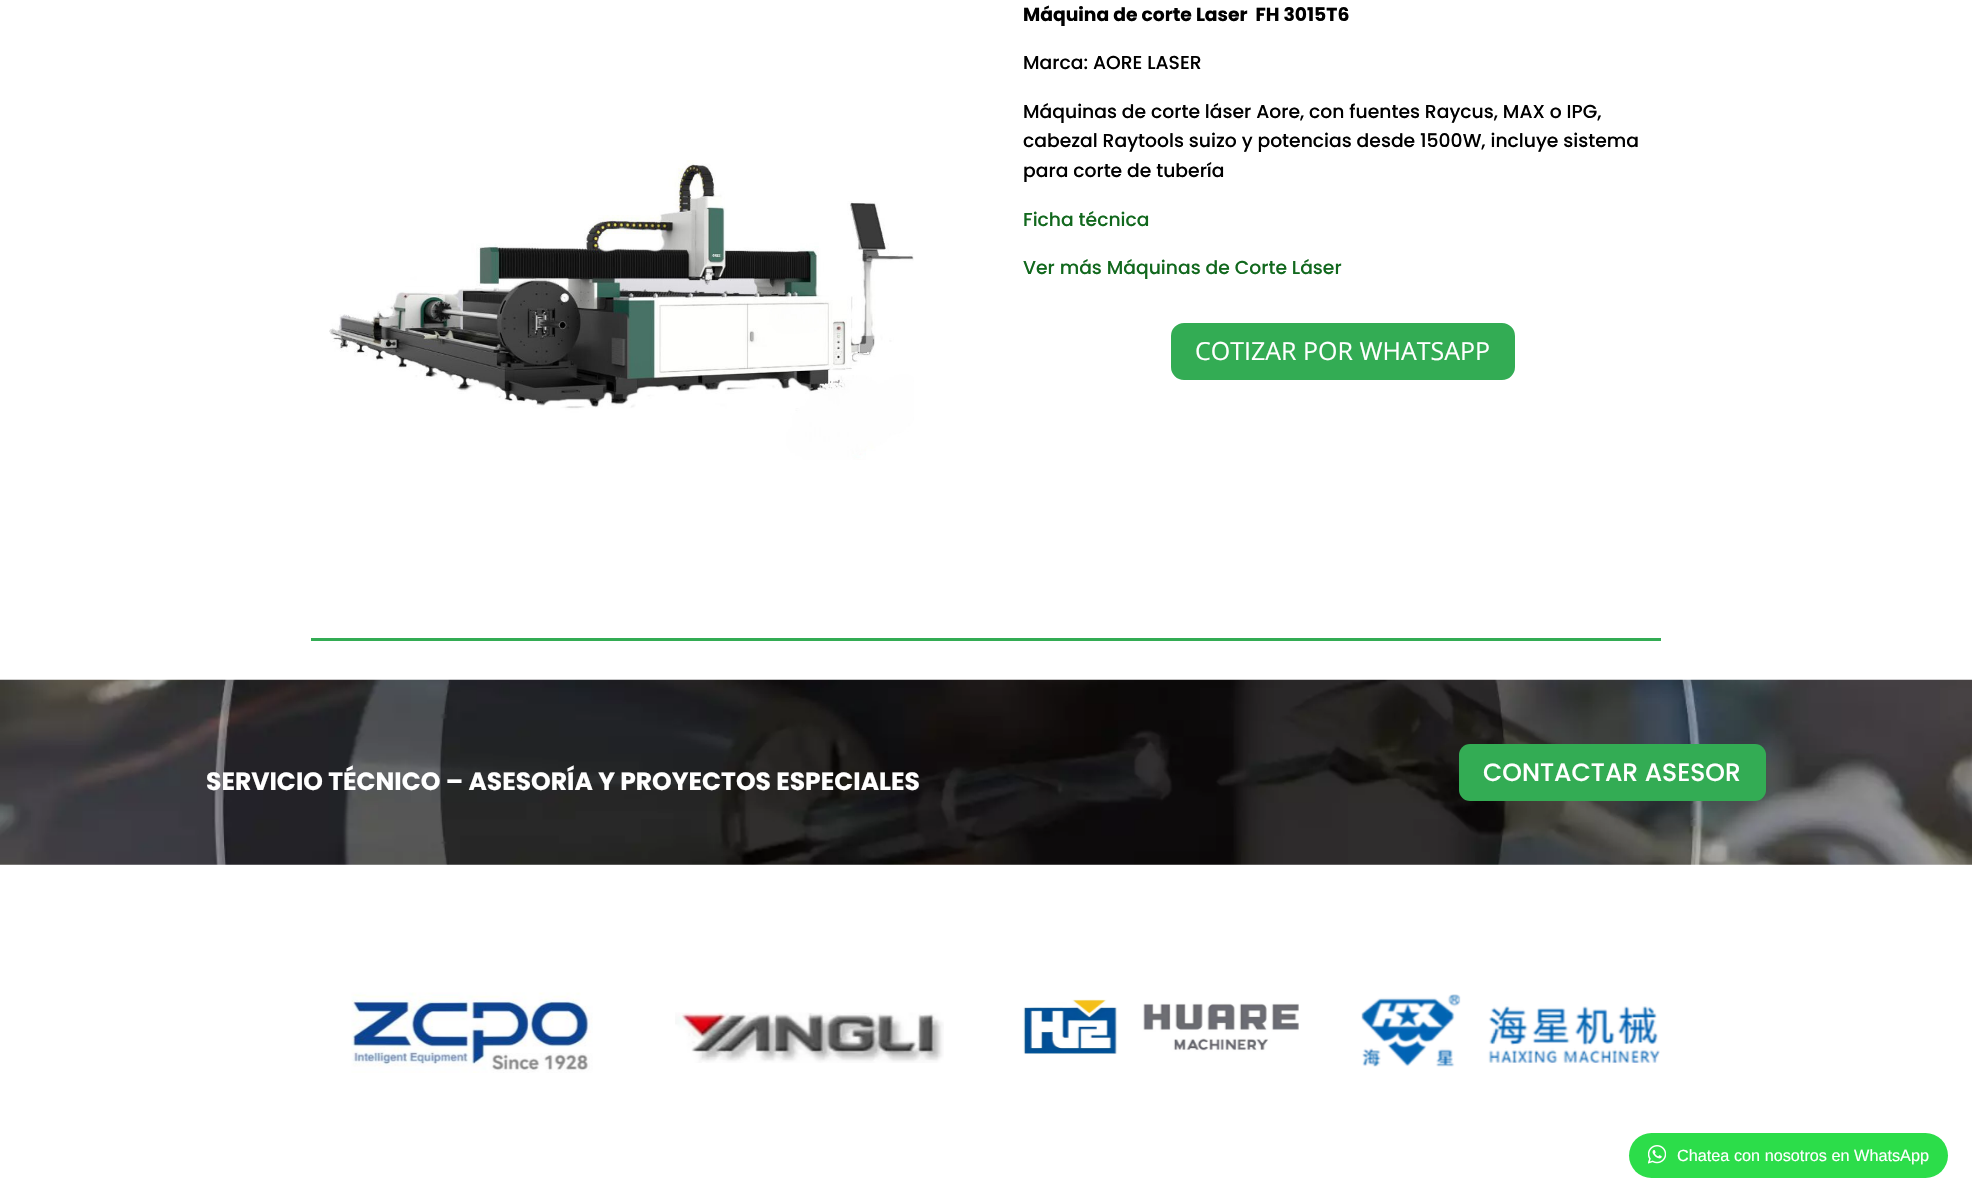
#include "include/core/SkBlurTypes.h"
#include "include/core/SkCanvas.h"
#include "include/core/SkData.h"
#include "include/core/SkFont.h"
#include "include/core/SkFontMgr.h"
#include "include/core/SkImage.h"
#include "include/core/SkMaskFilter.h"
#include "include/core/SkPaint.h"
#include "include/core/SkPathBuilder.h"
#include "include/core/SkTextBlob.h"
#include "include/effects/SkDashPathEffect.h"
#include "include/effects/SkGradientShader.h"
#include "include/utils/SkParsePath.h"

extern sk_sp<SkFontMgr> fontMgr;

void draw(SkCanvas* canvas) {
  SkPaint p;
  p.setAntiAlias(true);
  canvas->clear(SK_ColorWHITE);
  p.setColor(SkColorSetRGB(51, 172, 84));
  canvas->drawRect(SkRect::MakeLTRB(311, 638, 1661, 641), p);
  canvas->drawImageRect(SkImages::DeferredFromEncodedData(SkData::MakeFromFileName("images/1.png")), SkRect::MakeLTRB(329, 160, 914, 460), SkSamplingOptions());
  canvas->drawRoundRect(SkRect::MakeLTRB(1169.5f, 321.5f, 1516.5f, 381.5f), 14.5f, 14.5f, p);
  p.setStyle(SkPaint::kStroke_Style);
  p.setStrokeWidth(3);
  p.setColor(SK_ColorWHITE);
  canvas->drawRoundRect(SkRect::MakeLTRB(1169.5f, 321.5f, 1516.5f, 381.5f), 14.5f, 14.5f, p);
  canvas->drawImageRect(SkImages::DeferredFromEncodedData(SkData::MakeFromFileName("images/2.png")), SkRect::MakeLTRB(0, 679, 1972, 865), SkSamplingOptions());
  p.setStyle(SkPaint::kFill_Style);
  p.setColor(SkColorSetRGB(51, 172, 84));
  canvas->drawRoundRect(SkRect::MakeLTRB(1459, 744, 1766, 801), 11, 11, p);
  canvas->drawImageRect(SkImages::DeferredFromEncodedData(SkData::MakeFromFileName("images/3.png")), SkRect::MakeLTRB(351, 992, 593, 1073), SkSamplingOptions());
  canvas->drawImageRect(SkImages::DeferredFromEncodedData(SkData::MakeFromFileName("images/4.png")), SkRect::MakeLTRB(675, 1012, 944, 1063), SkSamplingOptions());
  canvas->drawImageRect(SkImages::DeferredFromEncodedData(SkData::MakeFromFileName("images/5.png")), SkRect::MakeLTRB(1023, 999, 1299, 1054), SkSamplingOptions());
  canvas->drawImageRect(SkImages::DeferredFromEncodedData(SkData::MakeFromFileName("images/6.png")), SkRect::MakeLTRB(1361, 994, 1660, 1067), SkSamplingOptions());
  p.setColor(SkColorSetRGB(44, 221, 74));
  canvas->drawRoundRect(SkRect::MakeLTRB(1629, 1133, 1948, 1178), 22.5f, 22.5f, p);
  canvas->drawImageRect(SkImages::DeferredFromEncodedData(SkData::MakeFromFileName("images/7.png")), SkRect::MakeLTRB(1648, 1145, 1666, 1164), SkSamplingOptions());
  SkFont font1(fontMgr->matchFamilyStyle("Poppins", SkFontStyle::Bold()), 18.75f);
  font1.setSubpixel(true);
  p.setColor(SK_ColorBLACK);
  canvas->drawString("Máquina de corte Laser  FH 3015T6", 1023, 21, font1, p);
  SkFont font2(fontMgr->matchFamilyStyle("Poppins", SkFontStyle(500, SkFontStyle::kNormal_Width, SkFontStyle::kUpright_Slant)), 18.75f);
  font2.setSubpixel(true);
  canvas->drawString("Marca: AORE LASER", 1023, 69, font2, p);
  canvas->drawString("Máquinas de corte láser Aore, con fuentes Raycus, MAX o IPG,", 1023, 118, font2, p);
  canvas->drawString("cabezal Raytools suizo y potencias desde 1500W, incluye sistema", 1023, 147, font2, p);
  canvas->drawString("para corte de tubería", 1023, 177, font2, p);
  p.setColor(SkColorSetRGB(17, 104, 29));
  canvas->drawString("Ficha técnica", 1023, 226, font2, p);
  canvas->drawString("Ver más Máquinas de Corte Láser", 1023, 274, font2, p);
  SkFont font3(fontMgr->matchFamilyStyle("Open Sans", SkFontStyle::Normal()), 25);
  font3.setSubpixel(true);
  p.setColor(SK_ColorWHITE);
  canvas->drawString("COTIZAR POR WHATSAPP", 1195, 360, font3, p);
  SkFont font4(fontMgr->matchFamilyStyle("Poppins", SkFontStyle::Bold()), 25);
  font4.setSubpixel(true);
  canvas->drawString("SERVICIO TÉCNICO – ASESORÍA Y PROYECTOS ESPECIALES", 206, 790, font4, p);
  SkFont font5(fontMgr->matchFamilyStyle("Poppins", SkFontStyle(500, SkFontStyle::kNormal_Width, SkFontStyle::kUpright_Slant)), 25);
  font5.setSubpixel(true);
  canvas->drawString("CONTACTAR ASESOR", 1483, 781, font5, p);
  SkFont font6(fontMgr->matchFamilyStyle("Liberation Sans", SkFontStyle::Normal()), 16.25f);
  font6.setSubpixel(true);
  canvas->drawString("Chatea con nosotros en WhatsApp", 1677, 1161, font6, p);
}
